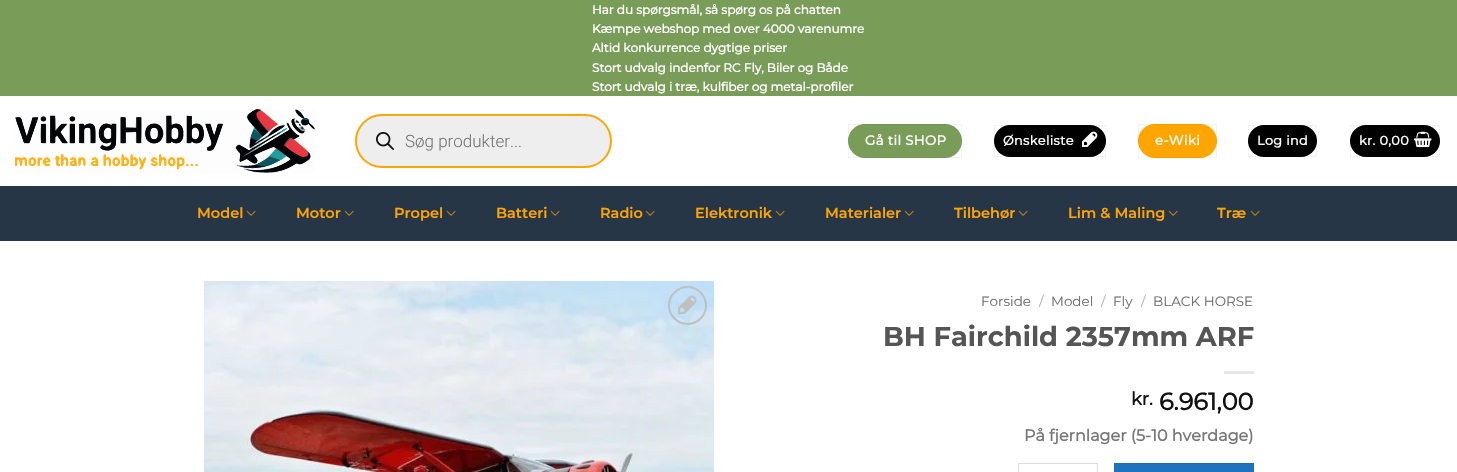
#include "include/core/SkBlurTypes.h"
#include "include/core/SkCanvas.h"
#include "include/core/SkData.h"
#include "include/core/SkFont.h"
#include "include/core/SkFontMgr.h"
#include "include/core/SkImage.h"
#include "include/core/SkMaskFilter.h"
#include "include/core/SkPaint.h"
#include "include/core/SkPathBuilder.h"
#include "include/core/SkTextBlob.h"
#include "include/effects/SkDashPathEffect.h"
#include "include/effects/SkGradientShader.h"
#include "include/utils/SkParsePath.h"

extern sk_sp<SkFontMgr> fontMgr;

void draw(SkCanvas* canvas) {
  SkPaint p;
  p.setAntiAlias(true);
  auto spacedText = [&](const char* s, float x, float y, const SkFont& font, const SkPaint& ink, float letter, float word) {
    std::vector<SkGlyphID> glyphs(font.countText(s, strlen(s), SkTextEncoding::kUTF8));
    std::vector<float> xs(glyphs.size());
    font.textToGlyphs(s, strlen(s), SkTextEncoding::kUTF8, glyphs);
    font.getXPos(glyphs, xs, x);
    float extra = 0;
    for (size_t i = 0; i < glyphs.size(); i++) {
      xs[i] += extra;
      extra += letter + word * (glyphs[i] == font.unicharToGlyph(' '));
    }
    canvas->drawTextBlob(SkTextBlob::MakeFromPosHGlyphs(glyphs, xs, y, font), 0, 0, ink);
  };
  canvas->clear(SK_ColorWHITE);
  p.setColor(SkColorSetRGB(122, 156, 89));
  canvas->drawRect(SkRect::MakeLTRB(0, 0, 1457, 96), p);
  canvas->drawImageRect(SkImages::DeferredFromEncodedData(SkData::MakeFromFileName("images/1.png")), SkRect::MakeLTRB(15, 109, 315, 173), SkSamplingOptions());
  p.setColor(SkColorSetRGB(238, 238, 238));
  canvas->drawRoundRect(SkRect::MakeLTRB(356, 115, 611, 167), 26, 26, p);
  p.setStyle(SkPaint::kStroke_Style);
  p.setStrokeWidth(2);
  p.setColor(SkColorSetRGB(255, 165, 0));
  canvas->drawRoundRect(SkRect::MakeLTRB(356, 115, 611, 167), 26, 26, p);
  canvas->drawImageRect(SkImages::DeferredFromEncodedData(SkData::MakeFromFileName("images/2.png")), SkRect::MakeLTRB(376, 132, 394, 150), SkSamplingOptions());
  p.setStyle(SkPaint::kFill_Style);
  p.setColor(SkColorSetRGB(122, 156, 89));
  canvas->drawRoundRect(SkRect::MakeLTRB(848, 124, 962, 158), 17, 17, p);
  p.setStyle(SkPaint::kStroke_Style);
  p.setStrokeWidth(1);
  p.setColor(SkColorSetARGB(13, 0, 0, 0));
  canvas->drawRect(SkRect::MakeLTRB(848.5f, 124.5f, 961.5f, 157.5f), p);
  p.setStyle(SkPaint::kFill_Style);
  p.setColor(SK_ColorBLACK);
  canvas->drawRoundRect(SkRect::MakeLTRB(994, 125, 1106, 157), 16, 16, p);
  p.setStyle(SkPaint::kStroke_Style);
  p.setColor(SkColorSetARGB(13, 0, 0, 0));
  canvas->drawRect(SkRect::MakeLTRB(994.5f, 125.5f, 1105.5f, 156.5f), p);
  canvas->drawImageRect(SkImages::DeferredFromEncodedData(SkData::MakeFromFileName("images/3.png")), SkRect::MakeLTRB(1082, 131, 1098, 147), SkSamplingOptions());
  p.setStyle(SkPaint::kFill_Style);
  p.setColor(SkColorSetRGB(255, 165, 0));
  canvas->drawRoundRect(SkRect::MakeLTRB(1138, 124, 1217, 158), 17, 17, p);
  p.setStyle(SkPaint::kStroke_Style);
  p.setColor(SkColorSetARGB(13, 0, 0, 0));
  canvas->drawRect(SkRect::MakeLTRB(1138.5f, 124.5f, 1216.5f, 157.5f), p);
  p.setStyle(SkPaint::kFill_Style);
  p.setColor(SK_ColorBLACK);
  canvas->drawRoundRect(SkRect::MakeLTRB(1248, 125, 1317, 157), 16, 16, p);
  p.setStyle(SkPaint::kStroke_Style);
  p.setColor(SkColorSetARGB(13, 0, 0, 0));
  canvas->drawRect(SkRect::MakeLTRB(1248.5f, 125.5f, 1316.5f, 156.5f), p);
  p.setStyle(SkPaint::kFill_Style);
  p.setColor(SK_ColorBLACK);
  canvas->drawRoundRect(SkRect::MakeLTRB(1350, 125, 1440, 157), 16, 16, p);
  p.setStyle(SkPaint::kStroke_Style);
  p.setColor(SkColorSetARGB(13, 0, 0, 0));
  canvas->drawRect(SkRect::MakeLTRB(1350.5f, 125.5f, 1439.5f, 156.5f), p);
  canvas->drawImageRect(SkImages::DeferredFromEncodedData(SkData::MakeFromFileName("images/4.png")), SkRect::MakeLTRB(1414, 131, 1432, 148), SkSamplingOptions());
  p.setStyle(SkPaint::kFill_Style);
  p.setColor(SkColorSetRGB(39, 54, 71));
  canvas->drawRect(SkRect::MakeLTRB(0, 186, 1457, 241), p);
  canvas->drawImageRect(SkImages::DeferredFromEncodedData(SkData::MakeFromFileName("images/5.png")), SkRect::MakeLTRB(246, 210, 256, 216), SkSamplingOptions());
  canvas->drawImageRect(SkImages::DeferredFromEncodedData(SkData::MakeFromFileName("images/5.png")), SkRect::MakeLTRB(344, 210, 354, 216), SkSamplingOptions());
  canvas->drawImageRect(SkImages::DeferredFromEncodedData(SkData::MakeFromFileName("images/5.png")), SkRect::MakeLTRB(446, 210, 456, 216), SkSamplingOptions());
  canvas->drawImageRect(SkImages::DeferredFromEncodedData(SkData::MakeFromFileName("images/5.png")), SkRect::MakeLTRB(550, 210, 560, 216), SkSamplingOptions());
  canvas->drawImageRect(SkImages::DeferredFromEncodedData(SkData::MakeFromFileName("images/5.png")), SkRect::MakeLTRB(645, 210, 655, 216), SkSamplingOptions());
  canvas->drawImageRect(SkImages::DeferredFromEncodedData(SkData::MakeFromFileName("images/5.png")), SkRect::MakeLTRB(775, 210, 785, 216), SkSamplingOptions());
  canvas->drawImageRect(SkImages::DeferredFromEncodedData(SkData::MakeFromFileName("images/5.png")), SkRect::MakeLTRB(904, 210, 914, 216), SkSamplingOptions());
  canvas->drawImageRect(SkImages::DeferredFromEncodedData(SkData::MakeFromFileName("images/5.png")), SkRect::MakeLTRB(1018, 210, 1028, 216), SkSamplingOptions());
  canvas->drawImageRect(SkImages::DeferredFromEncodedData(SkData::MakeFromFileName("images/5.png")), SkRect::MakeLTRB(1168, 210, 1178, 216), SkSamplingOptions());
  canvas->drawImageRect(SkImages::DeferredFromEncodedData(SkData::MakeFromFileName("images/5.png")), SkRect::MakeLTRB(1250, 210, 1260, 216), SkSamplingOptions());
  canvas->drawImageRect(SkImages::DeferredFromEncodedData(SkData::MakeFromFileName("images/6.png")), SkRect::MakeLTRB(204, 281, 714, 472), SkSamplingOptions());
  p.setStyle(SkPaint::kStroke_Style);
  p.setStrokeWidth(2);
  p.setColor(SkColorSetRGB(192, 192, 192));
  canvas->drawCircle(687.5f, 305.5f, 18.5f, p);
  canvas->drawImageRect(SkImages::DeferredFromEncodedData(SkData::MakeFromFileName("images/7.png")), SkRect::MakeLTRB(678, 295, 697, 315), SkSamplingOptions());
  p.setStyle(SkPaint::kFill_Style);
  p.setColor(SkColorSetRGB(230, 230, 230));
  canvas->drawRect(SkRect::MakeLTRB(1224, 371, 1254, 374), p);
  p.setColor(SkColorSetRGB(221, 221, 221));
  canvas->drawRect(SkRect::MakeLTRB(1018, 463, 1098, 464), p);
  canvas->drawRect(SkRect::MakeLTRB(1018, 463, 1019, 472), p);
  canvas->drawRect(SkRect::MakeLTRB(1097, 463, 1098, 472), p);
  p.setColor(SkColorSetRGB(30, 115, 190));
  canvas->drawRect(SkRect::MakeLTRB(1114.5f, 463.5f, 1253.5f, 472.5f), p);
  p.setStyle(SkPaint::kStroke_Style);
  p.setStrokeWidth(1);
  p.setColor(SkColorSetRGB(29, 109, 181));
  canvas->drawRect(SkRect::MakeLTRB(1114.5f, 463.5f, 1253.5f, 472.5f), p);
  SkFont font1(fontMgr->matchFamilyStyle("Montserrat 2", SkFontStyle::Bold()), 12);
  font1.setSubpixel(true);
  p.setStyle(SkPaint::kFill_Style);
  p.setColor(SK_ColorWHITE);
  canvas->drawString("Har du spørgsmål, så spørg os på chatten", 592, 14, font1, p);
  canvas->drawString("Kæmpe webshop med over 4000 varenumre", 592, 33, font1, p);
  canvas->drawString("Altid konkurrence dygtige priser", 592, 52, font1, p);
  canvas->drawString("Stort udvalg indenfor RC Fly, Biler og Både", 592, 72, font1, p);
  canvas->drawString("Stort udvalg i træ, kulfiber og metal-profiler", 592, 91, font1, p);
  SkFont font2(fontMgr->matchFamilyStyle("Roboto", SkFontStyle(300, SkFontStyle::kNormal_Width, SkFontStyle::kUpright_Slant)), 17);
  font2.setSubpixel(true);
  p.setColor(SkColorSetRGB(119, 119, 119));
  canvas->drawString("Søg produkter...", 405, 147, font2, p);
  SkFont font3(fontMgr->matchFamilyStyle("Montserrat 2", SkFontStyle::Bold()), 13.25f);
  font3.setSubpixel(true);
  p.setColor(SK_ColorWHITE);
  spacedText("Gå til SHOP", 865, 145, font3, p, 0.4f, 0);
  SkFont font4(fontMgr->matchFamilyStyle("Montserrat 2", SkFontStyle::Bold()), 12.75f);
  font4.setSubpixel(true);
  spacedText("Ønskeliste", 1003, 145, font4, p, 0.4f, 0);
  spacedText("e-Wiki", 1155, 145, font3, p, 0.4f, 0);
  spacedText("Log ind", 1257, 145, font4, p, 0.4f, 0);
  spacedText("kr. 0,00", 1359, 145, font4, p, 0.4f, 0);
  SkFont font5(fontMgr->matchFamilyStyle("Montserrat", SkFontStyle(600, SkFontStyle::kNormal_Width, SkFontStyle::kUpright_Slant)), 14.5f);
  font5.setSubpixel(true);
  p.setColor(SkColorSetRGB(255, 165, 0));
  canvas->drawString("Model", 197, 218, font5, p);
  canvas->drawString("Motor", 296, 218, font5, p);
  canvas->drawString("Propel", 394, 218, font5, p);
  canvas->drawString("Batteri", 496, 218, font5, p);
  canvas->drawString("Radio", 600, 218, font5, p);
  canvas->drawString("Elektronik", 695, 218, font5, p);
  canvas->drawString("Materialer", 825, 218, font5, p);
  canvas->drawString("Tilbehør", 954, 218, font5, p);
  canvas->drawString("Lim & Maling", 1068, 218, font5, p);
  canvas->drawString("Træ", 1217, 218, font5, p);
  SkFont font6(fontMgr->matchFamilyStyle("Montserrat", SkFontStyle::Normal()), 13.5f);
  font6.setSubpixel(true);
  p.setColor(SkColorSetRGB(110, 110, 110));
  canvas->drawString("Forside", 981, 306, font6, p);
  p.setColor(SkColorSetRGB(178, 178, 178));
  canvas->drawString("/", 1039, 306, font6, p);
  p.setColor(SkColorSetRGB(110, 110, 110));
  canvas->drawString("Model", 1051, 306, font6, p);
  p.setColor(SkColorSetRGB(178, 178, 178));
  canvas->drawString("/", 1101, 306, font6, p);
  p.setColor(SkColorSetRGB(110, 110, 110));
  canvas->drawString("Fly", 1113, 306, font6, p);
  p.setColor(SkColorSetRGB(178, 178, 178));
  canvas->drawString("/", 1141, 306, font6, p);
  p.setColor(SkColorSetRGB(110, 110, 110));
  canvas->drawString("BLACK HORSE", 1153, 306, font6, p);
  SkFont font7(fontMgr->matchFamilyStyle("Montserrat", SkFontStyle::Bold()), 27.25f);
  font7.setSubpixel(true);
  p.setColor(SkColorSetRGB(85, 85, 85));
  canvas->drawString("BH Fairchild 2357mm ARF", 883, 346, font7, p);
  SkFont font8(fontMgr->matchFamilyStyle("Montserrat 2", SkFontStyle::Bold()), 18);
  font8.setSubpixel(true);
  p.setColor(SkColorSetRGB(17, 17, 17));
  canvas->drawString("kr.", 1131, 405, font8, p);
  SkFont font9(fontMgr->matchFamilyStyle("Montserrat 2", SkFontStyle::Bold()), 24);
  font9.setSubpixel(true);
  canvas->drawString("6.961,00", 1159, 410, font9, p);
  SkFont font10(fontMgr->matchFamilyStyle("Montserrat 2", SkFontStyle::Bold()), 16);
  font10.setSubpixel(true);
  p.setColor(SkColorSetRGB(119, 119, 119));
  canvas->drawString("På fjernlager (5-10 hverdage)", 1024, 441, font10, p);
}
